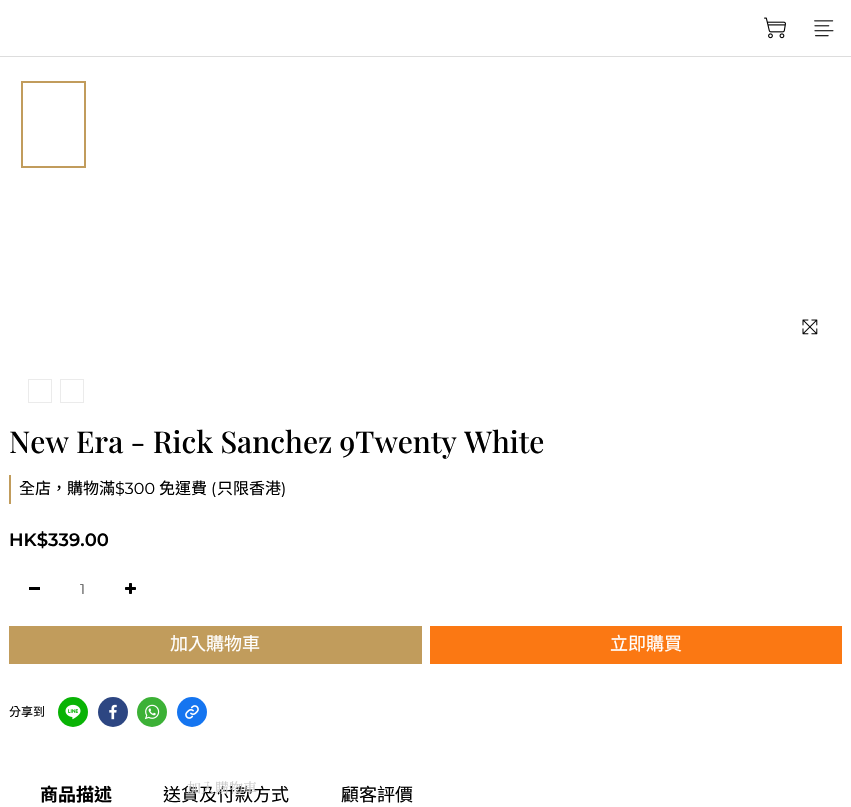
#include "include/core/SkBlurTypes.h"
#include "include/core/SkCanvas.h"
#include "include/core/SkData.h"
#include "include/core/SkFont.h"
#include "include/core/SkFontMgr.h"
#include "include/core/SkImage.h"
#include "include/core/SkMaskFilter.h"
#include "include/core/SkPaint.h"
#include "include/core/SkPathBuilder.h"
#include "include/core/SkTextBlob.h"
#include "include/effects/SkDashPathEffect.h"
#include "include/effects/SkGradientShader.h"
#include "include/utils/SkParsePath.h"

extern sk_sp<SkFontMgr> fontMgr;

void draw(SkCanvas* canvas) {
  SkPaint p;
  p.setAntiAlias(true);
  canvas->clear(SK_ColorWHITE);
  canvas->drawImageRect(SkImages::DeferredFromEncodedData(SkData::MakeFromFileName("images/1.png")), SkRect::MakeLTRB(764, 17, 786, 39), SkSamplingOptions());
  canvas->drawImageRect(SkImages::DeferredFromEncodedData(SkData::MakeFromFileName("images/2.png")), SkRect::MakeLTRB(814, 20, 834, 37), SkSamplingOptions());
  p.setColor(SkColorSetRGB(221, 221, 221));
  canvas->drawRect(SkRect::MakeLTRB(0, 56, 851, 57), p);
  p.setStyle(SkPaint::kStroke_Style);
  p.setStrokeWidth(2);
  p.setColor(SkColorSetRGB(193, 156, 92));
  canvas->drawRect(SkRect::MakeLTRB(22, 82, 85, 167), p);
  p.setStrokeWidth(1);
  p.setColor(SkColorSetRGB(235, 235, 235));
  canvas->drawRect(SkRect::MakeLTRB(28.5f, 379.5f, 51.5f, 402.5f), p);
  canvas->drawRect(SkRect::MakeLTRB(60.5f, 379.5f, 83.5f, 402.5f), p);
  canvas->drawImageRect(SkImages::DeferredFromEncodedData(SkData::MakeFromFileName("images/3.png")), SkRect::MakeLTRB(802, 319, 818, 335), SkSamplingOptions());
  p.setStyle(SkPaint::kFill_Style);
  p.setColor(SkColorSetRGB(193, 156, 92));
  canvas->drawRect(SkRect::MakeLTRB(9, 475, 11, 504), p);
  p.setColor(SK_ColorBLACK);
  canvas->drawRect(SkRect::MakeLTRB(29, 587, 40, 590), p);
  canvas->drawImageRect(SkImages::DeferredFromEncodedData(SkData::MakeFromFileName("images/4.png")), SkRect::MakeLTRB(125, 583, 136, 594), SkSamplingOptions());
  p.setColor(SkColorSetRGB(193, 156, 92));
  canvas->drawRect(SkRect::MakeLTRB(9, 626, 422, 664), p);
  p.setColor(SkColorSetRGB(251, 120, 19));
  canvas->drawRect(SkRect::MakeLTRB(430, 626, 842, 664), p);
  p.setColor(SkColorSetRGB(9, 179, 5));
  canvas->drawCircle(73, 712, 15, p);
  canvas->drawImageRect(SkImages::DeferredFromEncodedData(SkData::MakeFromFileName("images/5.png")), SkRect::MakeLTRB(65, 704, 81, 720), SkSamplingOptions());
  p.setColor(SkColorSetRGB(45, 70, 130));
  canvas->drawCircle(113, 712, 15, p);
  canvas->drawImageRect(SkImages::DeferredFromEncodedData(SkData::MakeFromFileName("images/6.png")), SkRect::MakeLTRB(109, 704, 117, 720), SkSamplingOptions());
  p.setColor(SkColorSetRGB(60, 177, 54));
  canvas->drawCircle(152, 712, 15, p);
  canvas->drawImageRect(SkImages::DeferredFromEncodedData(SkData::MakeFromFileName("images/7.png")), SkRect::MakeLTRB(144, 704, 160, 720), SkSamplingOptions());
  p.setColor(SkColorSetRGB(21, 117, 240));
  canvas->drawCircle(192, 712, 15, p);
  canvas->drawImageRect(SkImages::DeferredFromEncodedData(SkData::MakeFromFileName("images/8.png")), SkRect::MakeLTRB(185, 705, 199, 719), SkSamplingOptions());
  SkFont font1(fontMgr->matchFamilyStyle("Playfair Display", SkFontStyle(500, SkFontStyle::kNormal_Width, SkFontStyle::kUpright_Slant)), 30);
  font1.setSubpixel(true);
  p.setColor(SK_ColorBLACK);
  canvas->drawString("New Era - Rick Sanchez 9Twenty White", 9, 453, font1, p);
  SkFont font2(fontMgr->matchFamilyStyle("Noto Sans TC", SkFontStyle::Normal()), 16);
  font2.setSubpixel(true);
  canvas->drawString("全店，購物滿", 19, 494, font2, p);
  SkFont font3(fontMgr->matchFamilyStyle("Montserrat", SkFontStyle::Normal()), 16);
  font3.setSubpixel(true);
  canvas->drawString("$300", 115, 494, font3, p);
  canvas->drawString("免運費", 159, 494, font2, p);
  canvas->drawString("(", 211, 494, font3, p);
  canvas->drawString("只限香港", 217, 494, font2, p);
  canvas->drawString(")", 281, 494, font3, p);
  SkFont font4(fontMgr->matchFamilyStyle("Montserrat", SkFontStyle(600, SkFontStyle::kNormal_Width, SkFontStyle::kUpright_Slant)), 18);
  font4.setSubpixel(true);
  canvas->drawString("HK$339.00", 9, 546, font4, p);
  SkFont font5(fontMgr->matchFamilyStyle("Montserrat", SkFontStyle::Normal()), 14);
  font5.setSubpixel(true);
  p.setColor(SkColorSetRGB(85, 85, 85));
  canvas->drawString("1", 80, 594, font5, p);
  SkFont font6(fontMgr->matchFamilyStyle("Noto Sans TC", SkFontStyle::Normal()), 18);
  font6.setSubpixel(true);
  p.setColor(SK_ColorWHITE);
  canvas->drawString("加入購物車", 170, 650, font6, p);
  canvas->drawString("立即購買", 610, 650, font6, p);
  SkFont font7(fontMgr->matchFamilyStyle("Noto Sans TC", SkFontStyle::Normal()), 12);
  font7.setSubpixel(true);
  p.setColor(SK_ColorBLACK);
  canvas->drawString("分享到", 9, 716, font7, p);
  SkFont font8(fontMgr->matchFamilyStyle("Noto Sans TC", SkFontStyle::Bold()), 18);
  font8.setSubpixel(true);
  canvas->drawString("商品描述", 40, 801, font8, p);
  canvas->drawString("送貨及付款方式", 163, 801, font6, p);
  canvas->drawString("顧客評價", 341, 801, font6, p);
  SkFont font9(fontMgr->matchFamilyStyle("Noto Serif TC", SkFontStyle::Normal()), 14);
  font9.setSubpixel(true);
  p.setColor(SkColorSetRGB(203, 203, 203));
  canvas->drawString("加入購物車", 187, 793, font9, p);
}
